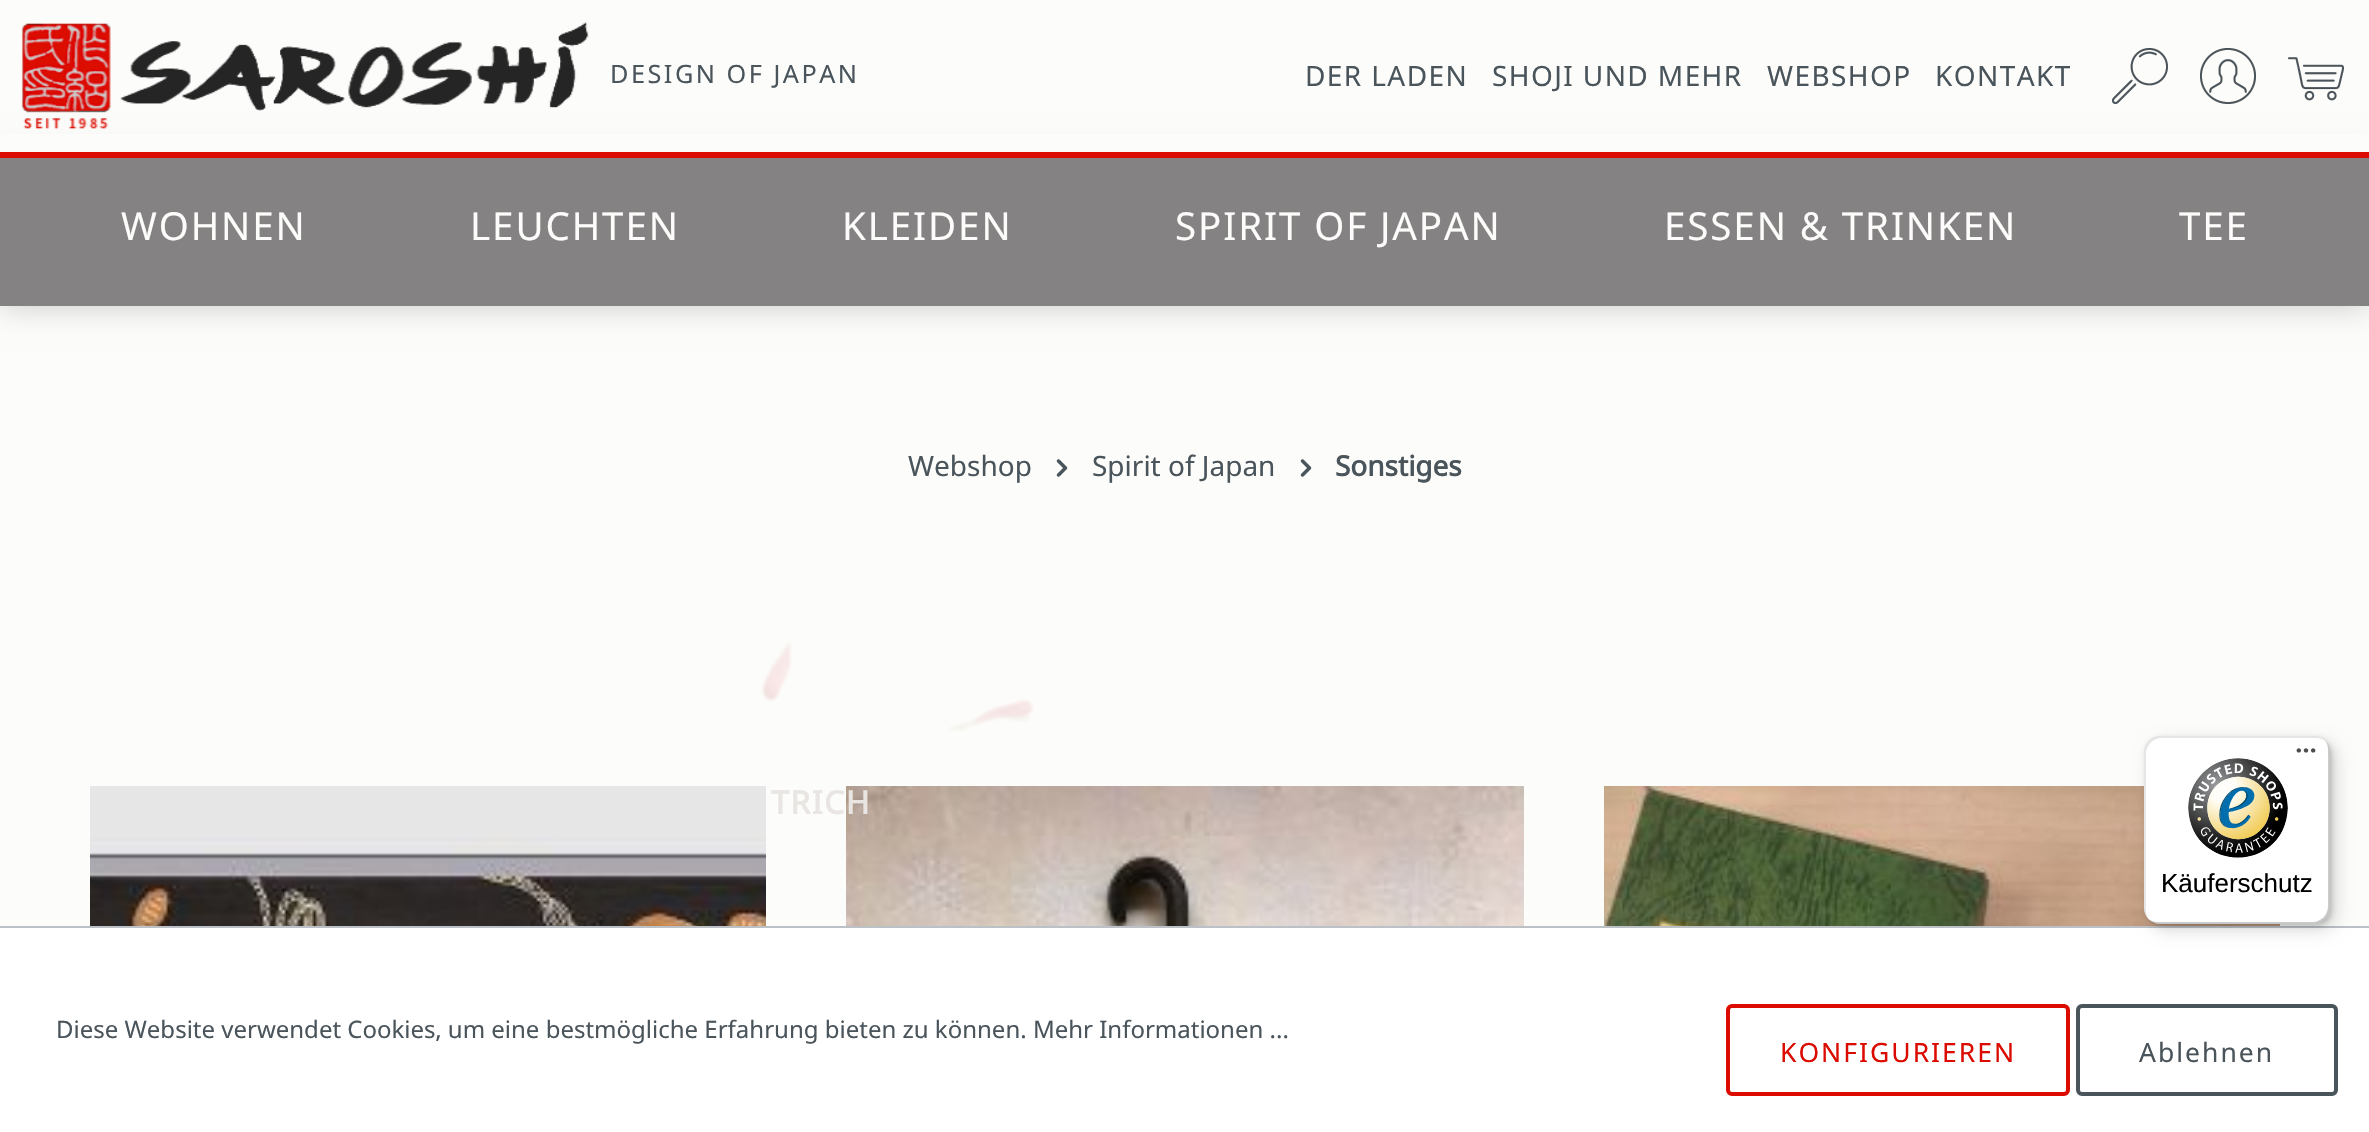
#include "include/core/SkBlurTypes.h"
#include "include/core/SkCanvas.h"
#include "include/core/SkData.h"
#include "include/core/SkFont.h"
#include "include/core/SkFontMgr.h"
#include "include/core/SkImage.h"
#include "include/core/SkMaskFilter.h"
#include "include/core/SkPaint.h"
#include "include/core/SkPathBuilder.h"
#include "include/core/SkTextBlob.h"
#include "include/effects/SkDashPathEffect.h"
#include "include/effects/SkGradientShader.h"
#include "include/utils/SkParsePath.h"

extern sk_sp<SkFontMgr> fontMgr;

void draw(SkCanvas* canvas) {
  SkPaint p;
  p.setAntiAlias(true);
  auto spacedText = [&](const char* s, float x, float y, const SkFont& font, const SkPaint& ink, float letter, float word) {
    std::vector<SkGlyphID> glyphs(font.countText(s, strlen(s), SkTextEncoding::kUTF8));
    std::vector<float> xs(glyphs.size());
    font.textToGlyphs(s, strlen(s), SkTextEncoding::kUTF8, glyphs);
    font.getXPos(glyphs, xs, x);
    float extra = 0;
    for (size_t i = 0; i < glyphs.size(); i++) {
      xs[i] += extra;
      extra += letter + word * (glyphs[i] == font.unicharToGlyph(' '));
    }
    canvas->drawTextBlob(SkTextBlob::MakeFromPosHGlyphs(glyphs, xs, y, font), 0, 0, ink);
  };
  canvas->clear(SkColorSetRGB(252, 252, 250));
  canvas->drawImageRect(SkImages::DeferredFromEncodedData(SkData::MakeFromFileName("images/1.png")), SkRect::MakeLTRB(761, 641, 1034, 732), SkSamplingOptions());
  p.setColor(SkColorSetARGB(51, 0, 0, 0));
  p.setMaskFilter(SkMaskFilter::MakeBlur(kNormal_SkBlurStyle, 15));
  canvas->drawRect(SkRect::MakeLTRB(0, 158, 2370, 306), p);
  p.setMaskFilter(nullptr);
  p.setColor(SkColorSetRGB(252, 252, 250));
  canvas->drawRect(SkRect::MakeLTRB(0, 134, 2369, 152), p);
  p.setColor(SkColorSetRGB(219, 11, 0));
  canvas->drawRect(SkRect::MakeLTRB(0, 152, 2369, 158), p);
  canvas->drawImageRect(SkImages::DeferredFromEncodedData(SkData::MakeFromFileName("images/2.png")), SkRect::MakeLTRB(21, 22, 589, 129), SkSamplingOptions());
  canvas->drawImageRect(SkImages::DeferredFromEncodedData(SkData::MakeFromFileName("images/3.png")), SkRect::MakeLTRB(2112, 48, 2168, 104), SkSamplingOptions());
  canvas->drawImageRect(SkImages::DeferredFromEncodedData(SkData::MakeFromFileName("images/4.png")), SkRect::MakeLTRB(2200, 48, 2256, 104), SkSamplingOptions());
  canvas->drawImageRect(SkImages::DeferredFromEncodedData(SkData::MakeFromFileName("images/5.png")), SkRect::MakeLTRB(2288, 57, 2344, 101), SkSamplingOptions());
  p.setColor(SkColorSetRGB(132, 130, 130));
  canvas->drawRect(SkRect::MakeLTRB(0, 158, 2369, 306), p);
  canvas->drawImageRect(SkImages::DeferredFromEncodedData(SkData::MakeFromFileName("images/6.png")), SkRect::MakeLTRB(1056, 459, 1068, 477), SkSamplingOptions());
  canvas->drawImageRect(SkImages::DeferredFromEncodedData(SkData::MakeFromFileName("images/6.png")), SkRect::MakeLTRB(1300, 459, 1312, 477), SkSamplingOptions());
  canvas->drawImageRect(SkImages::DeferredFromEncodedData(SkData::MakeFromFileName("images/7.png")), SkRect::MakeLTRB(90, 786, 766, 926), SkSamplingOptions());
  canvas->drawImageRect(SkImages::DeferredFromEncodedData(SkData::MakeFromFileName("images/8.png")), SkRect::MakeLTRB(846, 786, 1524, 926), SkSamplingOptions());
  canvas->drawImageRect(SkImages::DeferredFromEncodedData(SkData::MakeFromFileName("images/9.png")), SkRect::MakeLTRB(1604, 786, 2280, 926), SkSamplingOptions());
  p.setColor(SK_ColorWHITE);
  canvas->drawRect(SkRect::MakeLTRB(0, 928, 2369, 1132), p);
  p.setColor(SkColorSetRGB(188, 193, 199));
  canvas->drawRect(SkRect::MakeLTRB(0, 926, 2369, 928), p);
  p.setColor(SkColorSetARGB(38, 0, 0, 0));
  p.setMaskFilter(SkMaskFilter::MakeBlur(kNormal_SkBlurStyle, 8));
  canvas->drawRoundRect(SkRect::MakeLTRB(2150, 742, 2336, 930), 16, 16, p);
  p.setMaskFilter(nullptr);
  p.setMaskFilter(SkMaskFilter::MakeBlur(kNormal_SkBlurStyle, 2));
  canvas->drawRoundRect(SkRect::MakeLTRB(2146, 738, 2332, 926), 16, 16, p);
  p.setMaskFilter(nullptr);
  p.setColor(SK_ColorWHITE);
  canvas->drawRoundRect(SkRect::MakeLTRB(2144, 736, 2330, 924), 16, 16, p);
  p.setColor(SkColorSetARGB(26, 0, 0, 0));
  canvas->drawPath(SkPathBuilder().moveTo(2162, 738).lineTo(2316, 738).cubicTo(2320, 738, 2323, 739, 2326, 741).cubicTo(2323, 738, 2319, 736, 2314, 736).lineTo(2160, 736).cubicTo(2151, 736, 2144, 743, 2144, 752).lineTo(2144, 908).cubicTo(2144, 913, 2146, 917, 2149, 920).cubicTo(2147, 917, 2146, 914, 2146, 910).lineTo(2146, 754).cubicTo(2146, 745, 2153, 738, 2162, 738).close().detach(), p);
  p.setColor(SkColorSetARGB(51, 0, 0, 0));
  canvas->drawPath(SkPathBuilder().moveTo(2148, 919).cubicTo(2151, 922, 2155, 924, 2160, 924).lineTo(2314, 924).cubicTo(2323, 924, 2330, 917, 2330, 908).lineTo(2330, 752).cubicTo(2330, 747, 2328, 743, 2325, 740).cubicTo(2327, 743, 2328, 746, 2328, 750).lineTo(2328, 906).cubicTo(2328, 915, 2321, 922, 2312, 922).lineTo(2158, 922).cubicTo(2154, 922, 2151, 921, 2148, 919).close().detach(), p);
  p.setColor(SkColorSetARGB(51, 50, 50, 50));
  canvas->drawPath(SkPathBuilder().moveTo(2149, 919).cubicTo(2152, 922, 2156, 924, 2160, 924).lineTo(2314, 924).cubicTo(2323, 924, 2330, 917, 2330, 908).lineTo(2330, 752).cubicTo(2330, 748, 2328, 744, 2325, 741).cubicTo(2328, 744, 2329, 747, 2329, 751).lineTo(2329, 907).cubicTo(2329, 916, 2322, 923, 2313, 923).lineTo(2159, 923).cubicTo(2155, 923, 2152, 922, 2149, 919).close().detach(), p);
  p.setColor(SkColorSetARGB(77, 255, 255, 255));
  canvas->drawPath(SkPathBuilder().moveTo(2149, 919).cubicTo(2152, 922, 2156, 924, 2160, 924).lineTo(2314, 924).cubicTo(2323, 924, 2330, 917, 2330, 908).lineTo(2330, 752).cubicTo(2330, 748, 2328, 744, 2325, 741).cubicTo(2328, 744, 2329, 747, 2329, 751).lineTo(2329, 907).cubicTo(2329, 916, 2322, 923, 2313, 923).lineTo(2159, 923).cubicTo(2155, 923, 2152, 922, 2149, 919).close().detach(), p);
  canvas->drawImageRect(SkImages::DeferredFromEncodedData(SkData::MakeFromFileName("images/10.png")), SkRect::MakeLTRB(2296, 748, 2316, 753), SkSamplingOptions());
  canvas->drawImageRect(SkImages::DeferredFromEncodedData(SkData::MakeFromFileName("images/11.png")), SkRect::MakeLTRB(2188, 758, 2288, 858), SkSamplingOptions());
  p.setStyle(SkPaint::kStroke_Style);
  p.setStrokeWidth(4);
  p.setColor(SkColorSetRGB(219, 11, 0));
  canvas->drawRoundRect(SkRect::MakeLTRB(1728, 1006, 2068, 1094), 4, 4, p);
  p.setColor(SkColorSetRGB(74, 84, 91));
  canvas->drawRoundRect(SkRect::MakeLTRB(2078, 1006, 2336, 1094), 4, 4, p);
  SkFont font1(fontMgr->matchFamilyStyle("Noto Sans", SkFontStyle::Normal()), 25.25f);
  font1.setSubpixel(true);
  p.setStyle(SkPaint::kFill_Style);
  spacedText("DESIGN OF JAPAN", 610, 83, font1, p, 2.5f, 0);
  SkFont font2(fontMgr->matchFamilyStyle("Noto Sans", SkFontStyle::Normal()), 28);
  font2.setSubpixel(true);
  spacedText("DER LADEN", 1305, 86, font2, p, 1.4f, 0);
  spacedText("SHOJI UND MEHR", 1492, 86, font2, p, 1.4f, 0);
  spacedText("WEBSHOP", 1767, 86, font2, p, 1.4f, 0);
  spacedText("KONTAKT", 1935, 86, font2, p, 1.4f, 0);
  SkFont font3(fontMgr->matchFamilyStyle("Noto Sans", SkFontStyle::Normal()), 38.5f);
  font3.setSubpixel(true);
  p.setColor(SkColorSetRGB(252, 252, 250));
  spacedText("WOHNEN", 121, 240, font3, p, 1.9f, 0);
  spacedText("LEUCHTEN", 470, 240, font3, p, 1.9f, 0);
  spacedText("KLEIDEN", 842, 240, font3, p, 1.9f, 0);
  spacedText("SPIRIT OF JAPAN", 1175, 240, font3, p, 1.9f, 0);
  spacedText("ESSEN & TRINKEN", 1664, 240, font3, p, 1.9f, 0);
  spacedText("TEE", 2179, 240, font3, p, 1.9f, 0);
  SkFont font4(fontMgr->matchFamilyStyle("Noto Sans", SkFontStyle::Bold()), 32);
  font4.setSubpixel(true);
  p.setColor(SkColorSetRGB(232, 229, 227));
  spacedText("TRICH", 771, 814, font4, p, 1.5f, 0);
  p.setColor(SkColorSetRGB(74, 84, 91));
  canvas->drawString("Webshop", 908, 476, font2, p);
  canvas->drawString("Spirit of Japan", 1092, 476, font2, p);
  SkFont font5(fontMgr->matchFamilyStyle("Noto Sans", SkFontStyle::Bold()), 28);
  font5.setSubpixel(true);
  canvas->drawString("Sonstiges", 1335, 476, font5, p);
  SkFont font6(fontMgr->matchFamilyStyle("Liberation Sans", SkFontStyle::Normal()), 26);
  font6.setSubpixel(true);
  p.setColor(SK_ColorBLACK);
  canvas->drawString("Käuferschutz", 2161, 892, font6, p);
  SkFont font7(fontMgr->matchFamilyStyle("Noto Sans", SkFontStyle::Normal()), 24);
  font7.setSubpixel(true);
  p.setColor(SkColorSetRGB(74, 84, 91));
  canvas->drawString("Diese Website verwendet Cookies, um eine bestmögliche Erfahrung bieten zu können. Mehr Informationen ...", 56, 1038, font7, p);
  SkFont font8(fontMgr->matchFamilyStyle("Noto Sans", SkFontStyle::Normal()), 26.5f);
  font8.setSubpixel(true);
  p.setColor(SkColorSetRGB(219, 11, 0));
  spacedText("KONFIGURIEREN", 1780, 1062, font8, p, 2, 0);
  p.setColor(SkColorSetRGB(74, 84, 91));
  spacedText("Ablehnen", 2139, 1062, font8, p, 2, 0);
}
